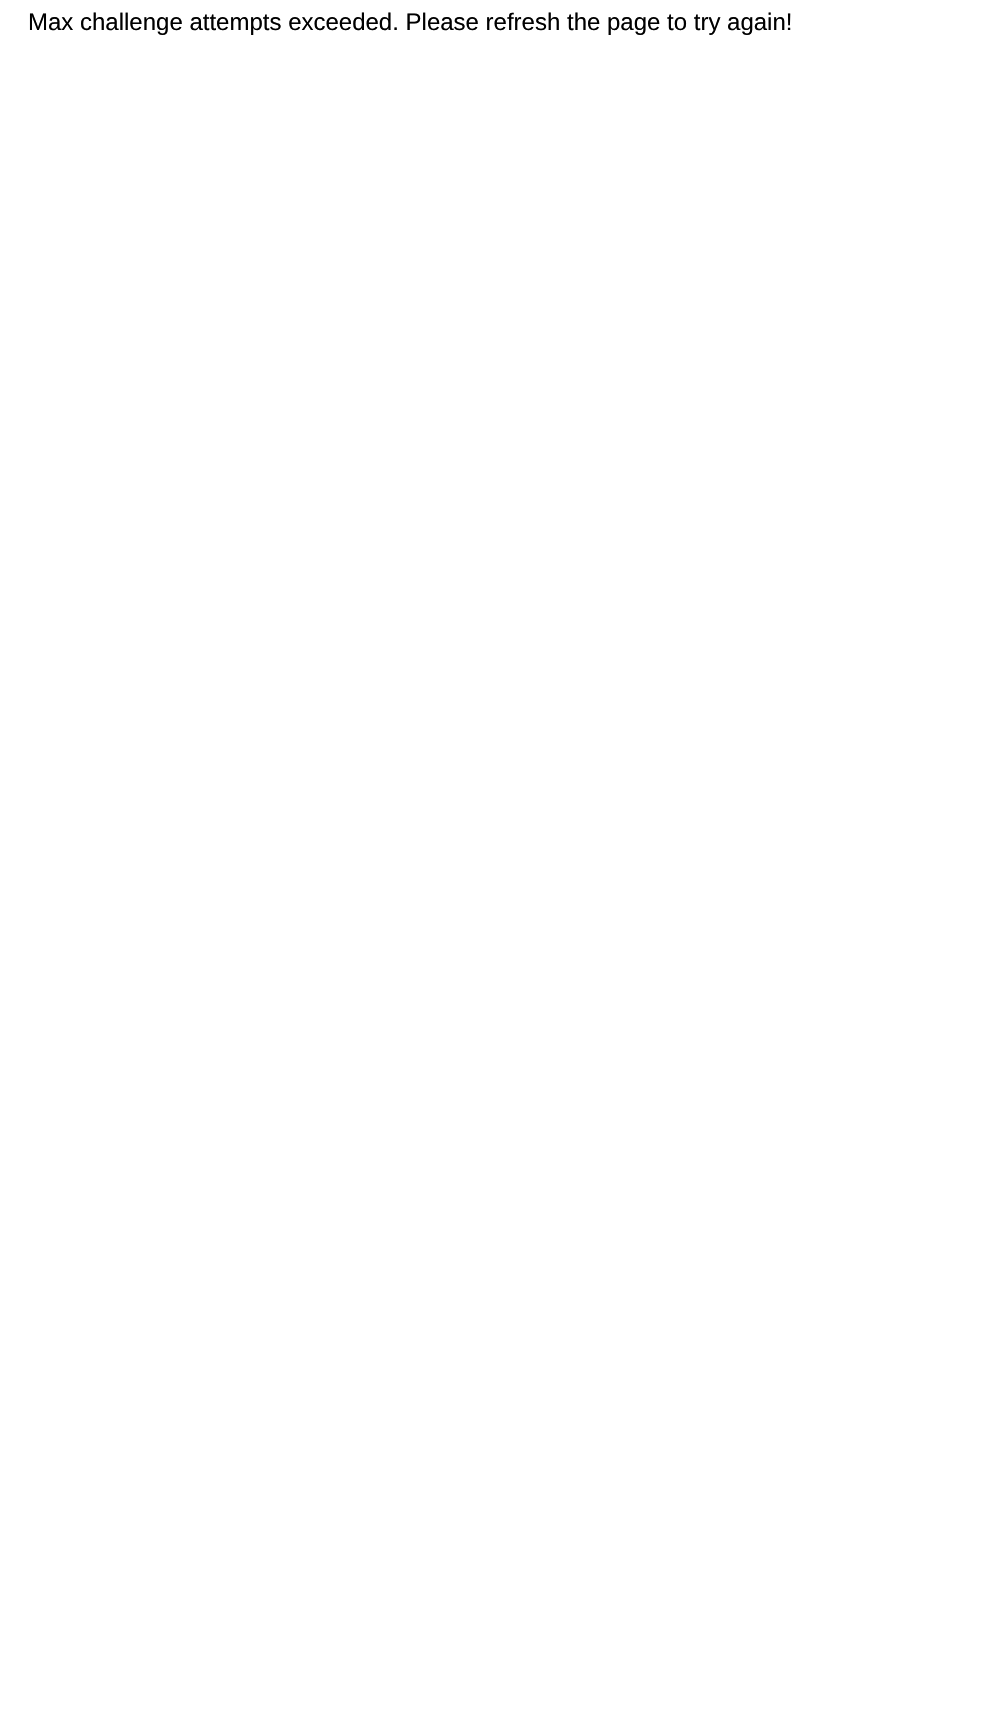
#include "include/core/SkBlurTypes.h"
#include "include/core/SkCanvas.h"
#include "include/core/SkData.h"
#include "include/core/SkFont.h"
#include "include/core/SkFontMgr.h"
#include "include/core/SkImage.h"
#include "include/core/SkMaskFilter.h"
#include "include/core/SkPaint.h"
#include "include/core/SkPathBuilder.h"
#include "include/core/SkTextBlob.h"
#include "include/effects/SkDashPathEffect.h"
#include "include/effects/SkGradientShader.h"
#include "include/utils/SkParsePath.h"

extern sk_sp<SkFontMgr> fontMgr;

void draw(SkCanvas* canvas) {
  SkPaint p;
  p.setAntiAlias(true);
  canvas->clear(SK_ColorWHITE);
  SkFont font1(fontMgr->matchFamilyStyle("Liberation Sans", SkFontStyle::Normal()), 24);
  font1.setSubpixel(true);
  p.setColor(SK_ColorBLACK);
  canvas->drawString("Max challenge attempts exceeded. Please refresh the page to try again!", 28, 30, font1, p);
}
